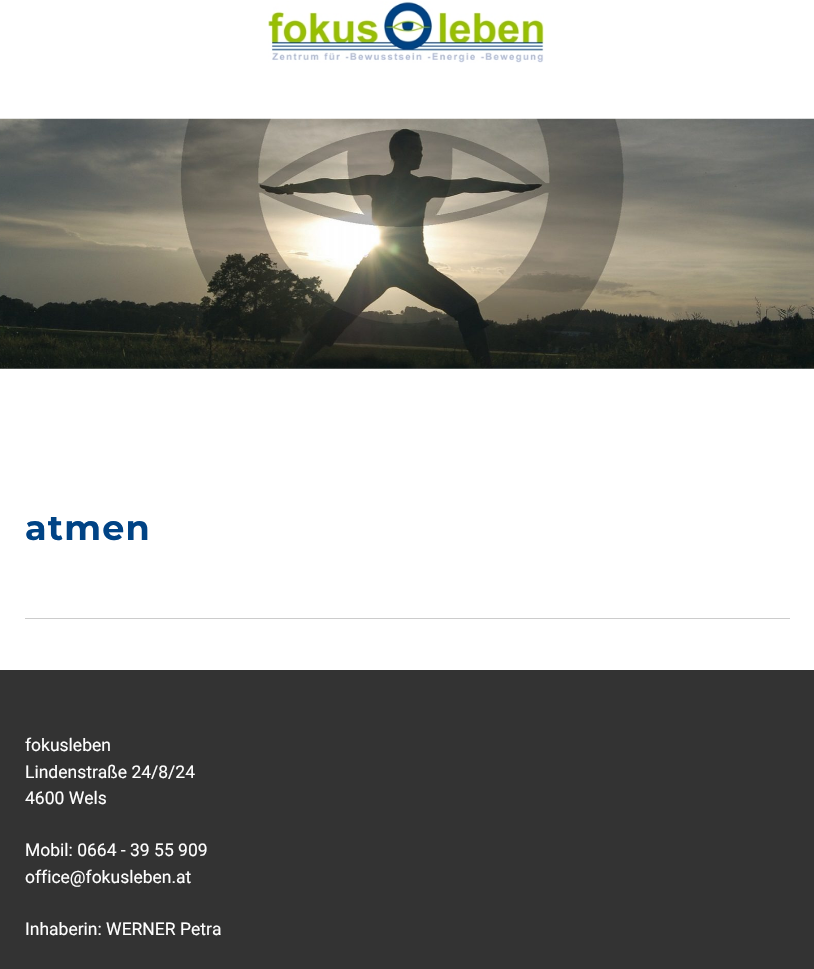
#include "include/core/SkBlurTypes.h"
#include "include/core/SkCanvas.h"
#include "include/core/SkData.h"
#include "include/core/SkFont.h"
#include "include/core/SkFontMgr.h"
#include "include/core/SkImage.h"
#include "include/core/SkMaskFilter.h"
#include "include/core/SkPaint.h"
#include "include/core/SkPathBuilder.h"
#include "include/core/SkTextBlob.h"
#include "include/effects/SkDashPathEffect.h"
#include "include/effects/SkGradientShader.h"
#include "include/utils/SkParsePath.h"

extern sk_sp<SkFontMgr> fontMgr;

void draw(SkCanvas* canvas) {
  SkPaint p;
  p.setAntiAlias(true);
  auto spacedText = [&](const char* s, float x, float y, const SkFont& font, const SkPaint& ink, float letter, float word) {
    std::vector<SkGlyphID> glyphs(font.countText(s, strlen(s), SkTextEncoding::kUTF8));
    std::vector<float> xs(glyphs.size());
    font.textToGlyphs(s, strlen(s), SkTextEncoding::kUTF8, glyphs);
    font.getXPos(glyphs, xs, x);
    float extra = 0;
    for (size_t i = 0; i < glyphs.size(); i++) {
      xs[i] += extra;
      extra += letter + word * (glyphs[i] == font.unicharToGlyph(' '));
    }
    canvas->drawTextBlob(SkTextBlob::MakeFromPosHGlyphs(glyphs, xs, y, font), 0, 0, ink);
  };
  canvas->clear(SK_ColorWHITE);
  canvas->drawImageRect(SkImages::DeferredFromEncodedData(SkData::MakeFromFileName("images/1.png")), SkRect::MakeLTRB(268, 1, 544, 63), SkSamplingOptions());
  canvas->drawImageRect(SkImages::DeferredFromEncodedData(SkData::MakeFromFileName("images/2.png")), SkRect::MakeLTRB(0, 118, 814, 369), SkSamplingOptions());
  p.setColor(SkColorSetRGB(204, 204, 204));
  canvas->drawRect(SkRect::MakeLTRB(25, 618, 790, 619), p);
  p.setColor(SkColorSetRGB(51, 51, 51));
  canvas->drawRect(SkRect::MakeLTRB(0, 670, 814, 969), p);
  SkFont font1(fontMgr->matchFamilyStyle("Montserrat", SkFontStyle::Bold()), 35);
  font1.setSubpixel(true);
  p.setColor(SkColorSetRGB(0, 67, 133));
  spacedText("atmen", 25, 540, font1, p, 1.25f, 0);
  SkFont font2(fontMgr->matchFamilyStyle("Roboto", SkFontStyle::Normal()), 17.5f);
  font2.setSubpixel(true);
  p.setColor(SK_ColorWHITE);
  canvas->drawString("fokusleben", 25, 751, font2, p);
  canvas->drawString("Lindenstraße 24/8/24", 25, 778, font2, p);
  canvas->drawString("4600 Wels", 25, 804, font2, p);
  canvas->drawString("Mobil: 0664 - 39 55 909", 25, 856, font2, p);
  canvas->drawString("office@fokusleben.at", 25, 883, font2, p);
  canvas->drawString("Inhaberin: WERNER Petra", 25, 935, font2, p);
}
